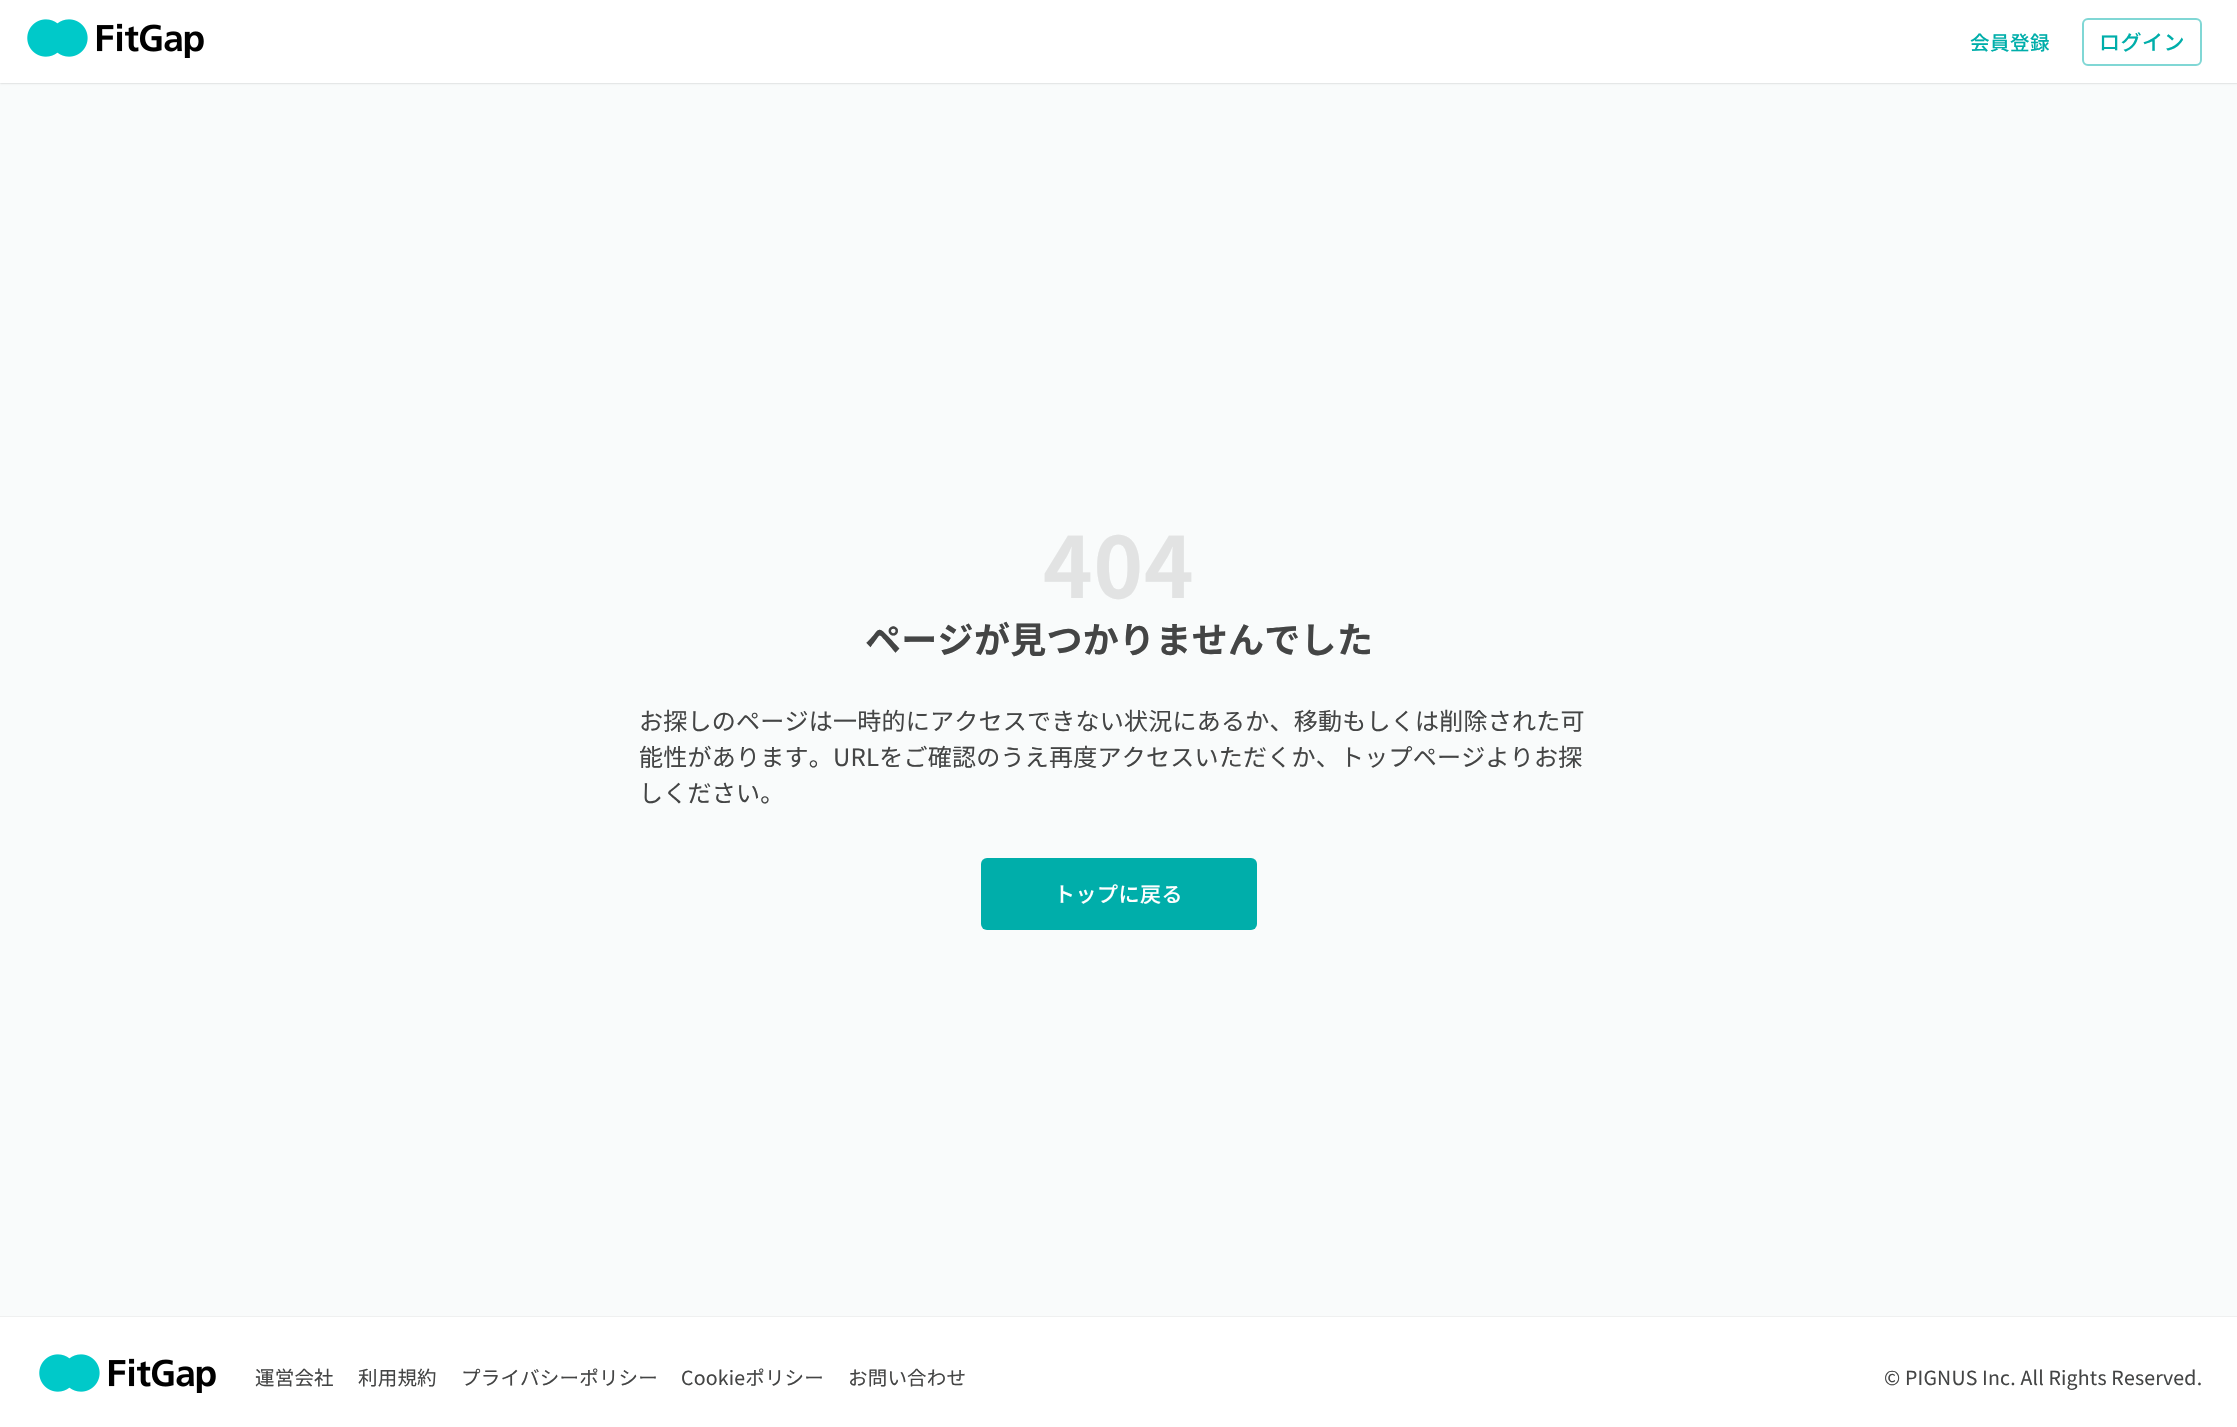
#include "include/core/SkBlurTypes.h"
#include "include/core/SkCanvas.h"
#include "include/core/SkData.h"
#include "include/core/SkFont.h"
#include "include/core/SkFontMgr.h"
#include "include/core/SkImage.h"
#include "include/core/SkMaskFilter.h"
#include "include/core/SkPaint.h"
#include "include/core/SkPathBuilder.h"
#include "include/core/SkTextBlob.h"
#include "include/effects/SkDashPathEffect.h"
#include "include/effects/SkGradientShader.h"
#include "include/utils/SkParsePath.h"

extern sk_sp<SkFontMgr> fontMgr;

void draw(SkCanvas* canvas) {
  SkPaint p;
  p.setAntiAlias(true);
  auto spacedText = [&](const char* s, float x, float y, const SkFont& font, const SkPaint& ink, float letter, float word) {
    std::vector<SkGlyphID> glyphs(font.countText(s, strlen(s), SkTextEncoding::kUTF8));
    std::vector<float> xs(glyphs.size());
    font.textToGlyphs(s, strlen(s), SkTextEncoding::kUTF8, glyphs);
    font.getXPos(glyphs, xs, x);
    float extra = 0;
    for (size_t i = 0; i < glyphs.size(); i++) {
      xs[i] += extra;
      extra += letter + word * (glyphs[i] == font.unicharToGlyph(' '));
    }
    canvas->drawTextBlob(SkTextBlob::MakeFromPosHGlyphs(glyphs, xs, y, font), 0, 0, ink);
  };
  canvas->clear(SkColorSetRGB(249, 251, 251));
  p.setColor(SkColorSetARGB(61, 0, 0, 0));
  p.setMaskFilter(SkMaskFilter::MakeBlur(kNormal_SkBlurStyle, 1));
  canvas->drawRect(SkRect::MakeLTRB(0, 0, 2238, 83), p);
  p.setMaskFilter(nullptr);
  p.setColor(SK_ColorWHITE);
  canvas->drawRect(SkRect::MakeLTRB(0, 0, 2237, 83), p);
  canvas->drawImageRect(SkImages::DeferredFromEncodedData(SkData::MakeFromFileName("images/1.png")), SkRect::MakeLTRB(27, 19, 204, 58), SkSamplingOptions());
  p.setStyle(SkPaint::kStroke_Style);
  p.setStrokeWidth(2);
  p.setColor(SkColorSetRGB(128, 215, 213));
  canvas->drawRoundRect(SkRect::MakeLTRB(2083, 19, 2201, 65), 5, 5, p);
  p.setStyle(SkPaint::kFill_Style);
  p.setColor(SkColorSetRGB(0, 174, 170));
  canvas->drawRoundRect(SkRect::MakeLTRB(981, 858, 1257, 930), 6, 6, p);
  p.setColor(SkColorSetRGB(239, 240, 240));
  canvas->drawRect(SkRect::MakeLTRB(0, 1316, 2237, 1317), p);
  p.setColor(SK_ColorWHITE);
  canvas->drawRect(SkRect::MakeLTRB(0, 1317, 2237, 1427), p);
  canvas->drawImageRect(SkImages::DeferredFromEncodedData(SkData::MakeFromFileName("images/1.png")), SkRect::MakeLTRB(39, 1354, 216, 1393), SkSamplingOptions());
  SkFont font1(fontMgr->matchFamilyStyle("Noto Sans JP", SkFontStyle(500, SkFontStyle::kNormal_Width, SkFontStyle::kUpright_Slant)), 19.5f);
  font1.setSubpixel(true);
  p.setColor(SkColorSetRGB(0, 174, 170));
  spacedText("会員登録", 1970, 50, font1, p, 0.5f, 0);
  SkFont font2(fontMgr->matchFamilyStyle("Noto Sans JP", SkFontStyle(500, SkFontStyle::kNormal_Width, SkFontStyle::kUpright_Slant)), 21);
  font2.setSubpixel(true);
  spacedText("ログイン", 2099, 50, font2, p, 0.5f, 0);
  SkFont font3(fontMgr->matchFamilyStyle("Noto Sans JP", SkFontStyle::Bold()), 84);
  font3.setSubpixel(true);
  p.setColor(SkColorSetRGB(226, 227, 227));
  spacedText("404", 1043, 598, font3, p, 1, 0);
  SkFont font4(fontMgr->matchFamilyStyle("Noto Sans JP", SkFontStyle::Bold()), 36);
  font4.setSubpixel(true);
  p.setColor(SkColorSetRGB(68, 69, 69));
  spacedText("ページが見つかりませんでした", 865, 653, font4, p, 0.3f, 0);
  SkFont font5(fontMgr->matchFamilyStyle("Noto Sans JP", SkFontStyle::Normal()), 24);
  font5.setSubpixel(true);
  spacedText("お探しのページは一時的にアクセスできない状況にあるか、移動もしくは削除された可", 639, 730, font5, p, 0.25f, 0);
  spacedText("能性があります。URLをご確認のうえ再度アクセスいただくか、トップページよりお探", 639, 766, font5, p, 0.25f, 0);
  spacedText("しください。", 639, 802, font5, p, 0.25f, 0);
  p.setColor(SK_ColorWHITE);
  spacedText("トップに戻る", 1054, 902, font2, p, 0.5f, 0);
  SkFont font6(fontMgr->matchFamilyStyle("Noto Sans JP", SkFontStyle::Normal()), 19.5f);
  font6.setSubpixel(true);
  p.setColor(SkColorSetRGB(68, 69, 69));
  spacedText("運営会社", 255, 1385, font6, p, 0.2f, 0);
  spacedText("利用規約", 358, 1385, font6, p, 0.2f, 0);
  spacedText("プライバシーポリシー", 461, 1385, font6, p, 0.2f, 0);
  spacedText("Cookieポリシー", 681, 1385, font6, p, 0.2f, 0);
  spacedText("お問い合わせ", 848, 1385, font6, p, 0.2f, 0);
  spacedText("© PIGNUS Inc. All Rights Reserved.", 1884, 1385, font6, p, 0.2f, 0);
}
